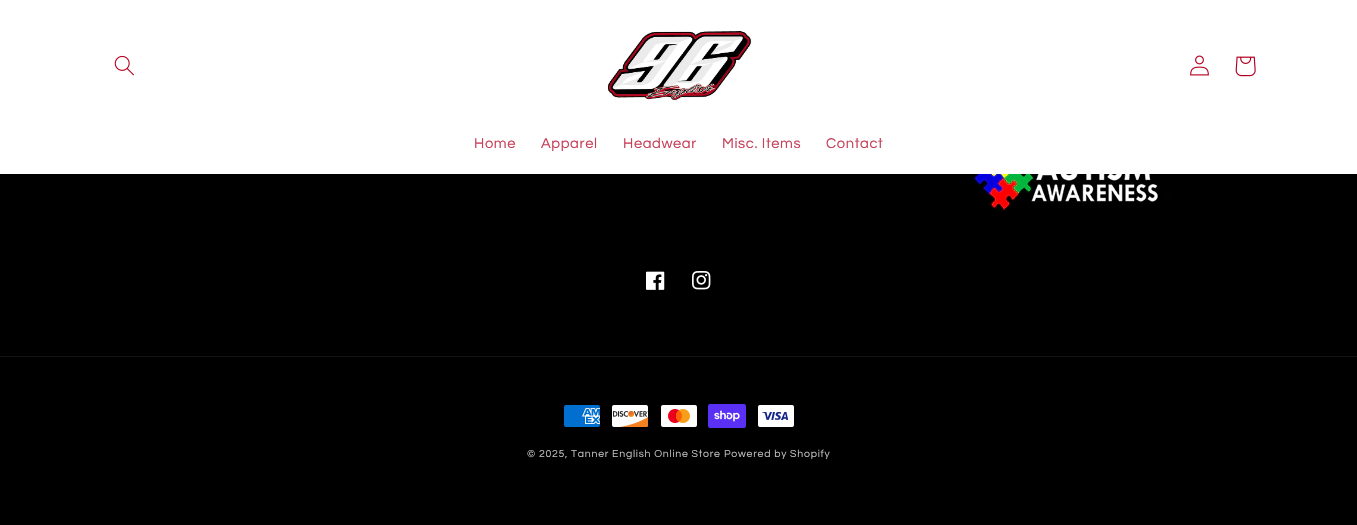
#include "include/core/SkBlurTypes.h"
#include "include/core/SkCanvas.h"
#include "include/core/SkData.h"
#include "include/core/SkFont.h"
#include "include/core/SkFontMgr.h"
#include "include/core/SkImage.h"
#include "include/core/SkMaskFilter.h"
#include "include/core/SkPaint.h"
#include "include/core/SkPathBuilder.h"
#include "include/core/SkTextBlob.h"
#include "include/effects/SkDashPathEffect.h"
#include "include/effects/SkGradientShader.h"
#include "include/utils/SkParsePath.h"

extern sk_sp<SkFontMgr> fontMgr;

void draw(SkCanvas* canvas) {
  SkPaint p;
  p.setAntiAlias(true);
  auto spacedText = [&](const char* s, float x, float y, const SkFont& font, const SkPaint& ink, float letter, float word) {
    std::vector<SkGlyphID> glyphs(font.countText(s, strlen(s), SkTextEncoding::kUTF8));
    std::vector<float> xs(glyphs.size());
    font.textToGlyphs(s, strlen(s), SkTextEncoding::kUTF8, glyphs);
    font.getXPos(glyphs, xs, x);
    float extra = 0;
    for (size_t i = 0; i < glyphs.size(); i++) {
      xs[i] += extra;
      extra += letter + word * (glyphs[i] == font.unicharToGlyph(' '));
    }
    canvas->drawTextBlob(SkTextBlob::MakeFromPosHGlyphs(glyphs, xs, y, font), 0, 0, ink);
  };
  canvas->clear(SK_ColorBLACK);
  p.setColor(SK_ColorWHITE);
  canvas->drawRect(SkRect::MakeLTRB(0, 0, 1357, 174), p);
  canvas->drawImageRect(SkImages::DeferredFromEncodedData(SkData::MakeFromFileName("images/1.png")), SkRect::MakeLTRB(114, 55, 134, 76), SkSamplingOptions());
  canvas->drawImageRect(SkImages::DeferredFromEncodedData(SkData::MakeFromFileName("images/2.png")), SkRect::MakeLTRB(608, 31, 752, 101), SkSamplingOptions());
  canvas->drawImageRect(SkImages::DeferredFromEncodedData(SkData::MakeFromFileName("images/3.png")), SkRect::MakeLTRB(1190, 55, 1209, 76), SkSamplingOptions());
  canvas->drawImageRect(SkImages::DeferredFromEncodedData(SkData::MakeFromFileName("images/4.png")), SkRect::MakeLTRB(1235, 56, 1256, 77), SkSamplingOptions());
  canvas->drawImageRect(SkImages::DeferredFromEncodedData(SkData::MakeFromFileName("images/5.png")), SkRect::MakeLTRB(973, 174, 1173, 211), SkSamplingOptions());
  canvas->drawImageRect(SkImages::DeferredFromEncodedData(SkData::MakeFromFileName("images/6.png")), SkRect::MakeLTRB(646, 271, 665, 290), SkSamplingOptions());
  canvas->drawImageRect(SkImages::DeferredFromEncodedData(SkData::MakeFromFileName("images/7.png")), SkRect::MakeLTRB(692, 271, 711, 290), SkSamplingOptions());
  p.setColor(SkColorSetRGB(20, 20, 20));
  canvas->drawRect(SkRect::MakeLTRB(0, 356, 1357, 357), p);
  canvas->drawImageRect(SkImages::DeferredFromEncodedData(SkData::MakeFromFileName("images/8.png")), SkRect::MakeLTRB(564, 405, 600, 427), SkSamplingOptions());
  canvas->drawImageRect(SkImages::DeferredFromEncodedData(SkData::MakeFromFileName("images/9.png")), SkRect::MakeLTRB(612, 405, 649, 427), SkSamplingOptions());
  canvas->drawImageRect(SkImages::DeferredFromEncodedData(SkData::MakeFromFileName("images/10.png")), SkRect::MakeLTRB(661, 405, 697, 427), SkSamplingOptions());
  canvas->drawImageRect(SkImages::DeferredFromEncodedData(SkData::MakeFromFileName("images/11.png")), SkRect::MakeLTRB(708, 404, 746, 428), SkSamplingOptions());
  canvas->drawImageRect(SkImages::DeferredFromEncodedData(SkData::MakeFromFileName("images/12.png")), SkRect::MakeLTRB(758, 405, 794, 427), SkSamplingOptions());
  SkFont font1(fontMgr->matchFamilyStyle("Questrial", SkFontStyle::Normal()), 14.75f);
  font1.setSubpixel(true);
  p.setColor(SkColorSetRGB(198, 64, 88));
  spacedText("Home", 474, 148, font1, p, 0.6f, 0);
  spacedText("Apparel", 541, 148, font1, p, 0.6f, 0);
  spacedText("Headwear", 623, 148, font1, p, 0.6f, 0);
  spacedText("Misc. Items", 722, 148, font1, p, 0.6f, 0);
  spacedText("Contact", 826, 148, font1, p, 0.6f, 0);
  SkFont font2(fontMgr->matchFamilyStyle("Questrial", SkFontStyle::Normal()), 10.5f);
  font2.setSubpixel(true);
  p.setColor(SkColorSetRGB(191, 191, 191));
  spacedText("© 2025, Tanner English Online Store", 527, 457, font2, p, 0.75f, 0);
  spacedText("Powered by Shopify", 724, 457, font2, p, 0.75f, 0);
}
